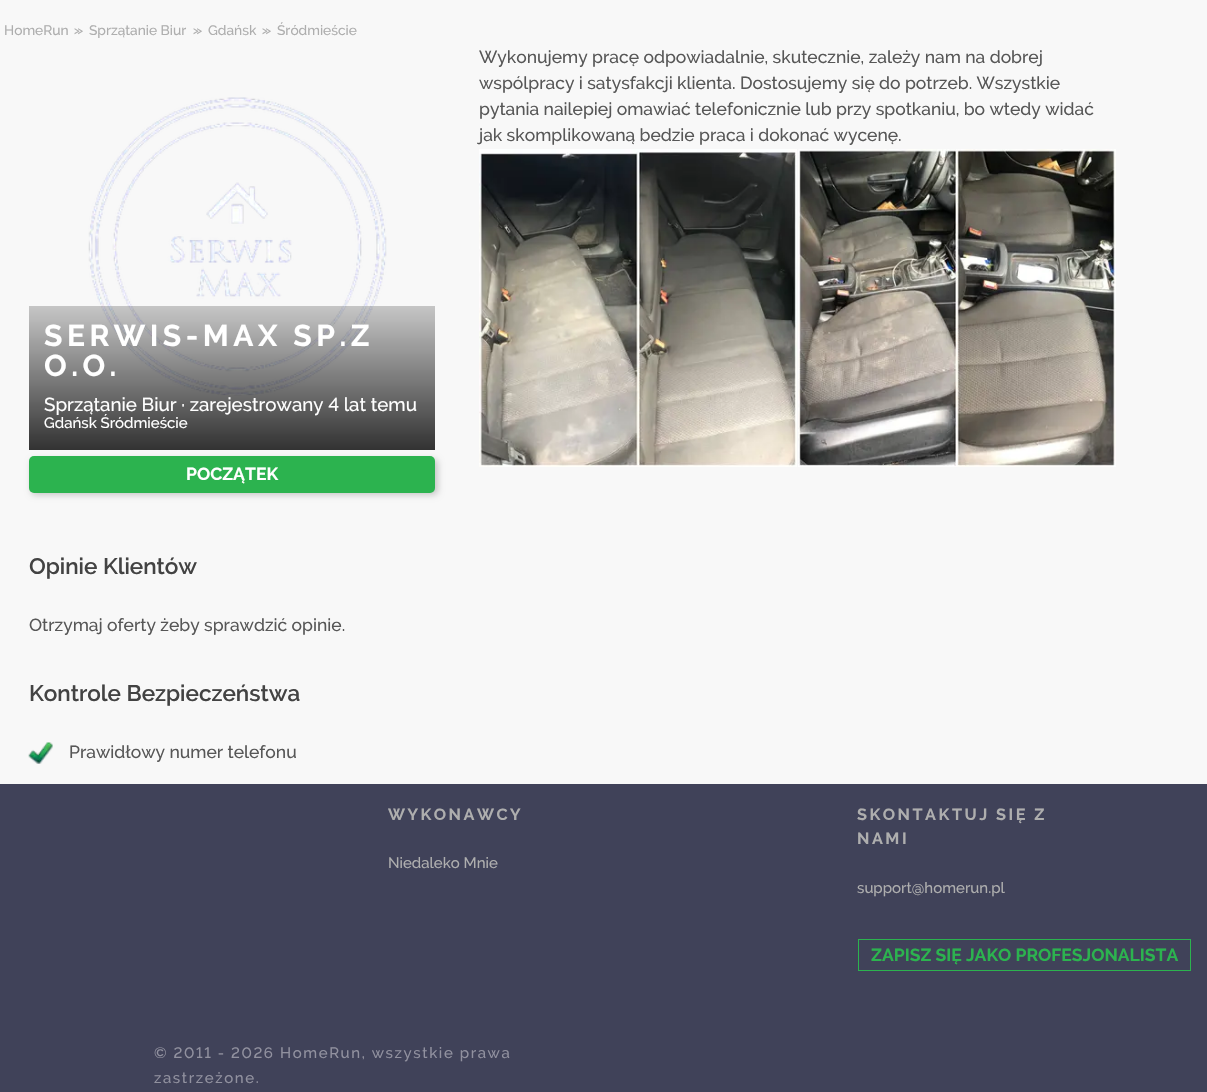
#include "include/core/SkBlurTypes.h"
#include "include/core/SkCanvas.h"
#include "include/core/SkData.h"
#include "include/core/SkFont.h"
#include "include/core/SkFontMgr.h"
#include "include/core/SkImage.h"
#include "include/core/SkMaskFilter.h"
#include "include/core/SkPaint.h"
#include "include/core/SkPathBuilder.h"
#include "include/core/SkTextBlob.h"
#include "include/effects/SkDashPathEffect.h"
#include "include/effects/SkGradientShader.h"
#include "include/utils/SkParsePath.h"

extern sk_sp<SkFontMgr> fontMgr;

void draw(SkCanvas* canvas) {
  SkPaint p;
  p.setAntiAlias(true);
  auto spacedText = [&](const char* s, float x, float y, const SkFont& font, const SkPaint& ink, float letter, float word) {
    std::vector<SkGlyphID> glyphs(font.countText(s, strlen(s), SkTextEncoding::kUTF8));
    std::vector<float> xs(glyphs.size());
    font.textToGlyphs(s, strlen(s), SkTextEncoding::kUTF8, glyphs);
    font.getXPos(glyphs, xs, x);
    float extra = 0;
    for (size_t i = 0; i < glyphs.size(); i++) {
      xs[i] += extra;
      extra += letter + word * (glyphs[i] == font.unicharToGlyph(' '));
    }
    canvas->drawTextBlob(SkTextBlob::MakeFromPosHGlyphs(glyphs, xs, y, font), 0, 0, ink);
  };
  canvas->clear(SkColorSetRGB(248, 248, 248));
  canvas->drawImageRect(SkImages::DeferredFromEncodedData(SkData::MakeFromFileName("images/1.png")), SkRect::MakeLTRB(479, 149, 797, 467), SkSamplingOptions());
  canvas->drawImageRect(SkImages::DeferredFromEncodedData(SkData::MakeFromFileName("images/2.png")), SkRect::MakeLTRB(798, 149, 1116, 467), SkSamplingOptions());
  canvas->drawImageRect(SkImages::DeferredFromEncodedData(SkData::MakeFromFileName("images/3.png")), SkRect::MakeLTRB(88, 97, 387, 396), SkSamplingOptions());
  {
    const SkColor colors[] = {SkColorSetARGB(51, 0, 0, 0), SkColorSetARGB(204, 0, 0, 0)};
    const float stops[] = {0, 1};
    const SkPoint ends[] = {{232, 306}, {232, 450}};
    p.setShader(SkGradientShader::MakeLinear(ends, colors, stops, 2, SkTileMode::kClamp));
    p.setAlpha(255);
  }
  canvas->drawRect(SkRect::MakeLTRB(29, 306, 435, 450), p);
  p.setShader(nullptr);
  p.setColor(SkColorSetARGB(51, 0, 0, 0));
  p.setMaskFilter(SkMaskFilter::MakeBlur(kNormal_SkBlurStyle, 3));
  canvas->drawRoundRect(SkRect::MakeLTRB(31, 459, 438, 495), 5, 5, p);
  p.setMaskFilter(nullptr);
  p.setColor(SkColorSetRGB(44, 179, 79));
  canvas->drawRoundRect(SkRect::MakeLTRB(29, 456, 435, 493), 5, 5, p);
  canvas->drawImageRect(SkImages::DeferredFromEncodedData(SkData::MakeFromFileName("images/4.png")), SkRect::MakeLTRB(28, 742, 53, 764), SkSamplingOptions());
  p.setColor(SkColorSetRGB(64, 66, 89));
  canvas->drawRect(SkRect::MakeLTRB(0, 784, 1207, 1092), p);
  p.setStyle(SkPaint::kStroke_Style);
  p.setStrokeWidth(1);
  p.setColor(SkColorSetRGB(44, 179, 79));
  canvas->drawRect(SkRect::MakeLTRB(858.5f, 939.5f, 1190.5f, 970.5f), p);
  SkFont font1(fontMgr->matchFamilyStyle("Raleway", SkFontStyle(500, SkFontStyle::kNormal_Width, SkFontStyle::kUpright_Slant)), 13.75f);
  font1.setSubpixel(true);
  p.setStyle(SkPaint::kFill_Style);
  p.setColor(SkColorSetRGB(174, 174, 174));
  canvas->drawString("HomeRun", 4, 35, font1, p);
  SkFont font2(fontMgr->matchFamilyStyle("Raleway", SkFontStyle(500, SkFontStyle::kNormal_Width, SkFontStyle::kUpright_Slant)), 11);
  font2.setSubpixel(true);
  spacedText(">>", 74, 34, font2, p, -2, 0);
  canvas->drawString("Sprzątanie Biur", 89, 35, font1, p);
  spacedText(">>", 193, 34, font2, p, -2, 0);
  canvas->drawString("Gdańsk", 208, 35, font1, p);
  spacedText(">>", 262, 34, font2, p, -2, 0);
  canvas->drawString("Śródmieście", 277, 35, font1, p);
  SkFont font3(fontMgr->matchFamilyStyle("Raleway", SkFontStyle(500, SkFontStyle::kNormal_Width, SkFontStyle::kUpright_Slant)), 17.5f);
  font3.setSubpixel(true);
  p.setColor(SkColorSetRGB(87, 87, 87));
  canvas->drawString("Wykonujemy pracę odpowiadalnie, skutecznie, zależy nam na dobrej", 479, 63, font3, p);
  canvas->drawString("wspólpracy i satysfakcji klienta. Dostosujemy się do potrzeb. Wszystkie", 479, 89, font3, p);
  canvas->drawString("pytania nailepiej omawiać telefonicznie lub przy spotkaniu, bo wtedy widać", 479, 115, font3, p);
  canvas->drawString("jak skomplikowaną bedzie praca i dokonać wycenę.", 479, 141, font3, p);
  SkFont font4(fontMgr->matchFamilyStyle("Raleway", SkFontStyle::Bold()), 30);
  font4.setSubpixel(true);
  p.setColor(SK_ColorWHITE);
  spacedText("SERWIS-MAX SP.Z", 44, 346, font4, p, 4.5f, 0);
  spacedText("O.O.", 44, 376, font4, p, 4.5f, 0);
  SkFont font5(fontMgr->matchFamilyStyle("Raleway", SkFontStyle(500, SkFontStyle::kNormal_Width, SkFontStyle::kUpright_Slant)), 18.75f);
  font5.setSubpixel(true);
  canvas->drawString("Sprzątanie Biur · zarejestrowany 4 lat temu", 44, 411, font5, p);
  SkFont font6(fontMgr->matchFamilyStyle("Raleway", SkFontStyle(500, SkFontStyle::kNormal_Width, SkFontStyle::kUpright_Slant)), 15);
  font6.setSubpixel(true);
  canvas->drawString("Gdańsk Śródmieście", 44, 428, font6, p);
  SkFont font7(fontMgr->matchFamilyStyle("Raleway", SkFontStyle::Bold()), 17.5f);
  font7.setSubpixel(true);
  canvas->drawString("POCZĄTEK", 186, 480, font7, p);
  SkFont font8(fontMgr->matchFamilyStyle("Raleway", SkFontStyle(600, SkFontStyle::kNormal_Width, SkFontStyle::kUpright_Slant)), 22.5f);
  font8.setSubpixel(true);
  p.setColor(SkColorSetRGB(67, 67, 67));
  canvas->drawString("Opinie Klientów", 29, 574, font8, p);
  p.setColor(SkColorSetRGB(87, 87, 87));
  canvas->drawString("Otrzymaj oferty żeby sprawdzić opinie.", 29, 631, font3, p);
  p.setColor(SkColorSetRGB(67, 67, 67));
  canvas->drawString("Kontrole Bezpieczeństwa", 29, 701, font8, p);
  p.setColor(SkColorSetRGB(87, 87, 87));
  canvas->drawString("Prawidłowy numer telefonu", 69, 758, font3, p);
  SkFont font9(fontMgr->matchFamilyStyle("Raleway", SkFontStyle::Bold()), 16.25f);
  font9.setSubpixel(true);
  p.setColor(SkColorSetRGB(174, 174, 174));
  spacedText("WYKONAWCY", 388, 820, font9, p, 2.5f, 0);
  canvas->drawString("Niedaleko Mnie", 388, 868, font6, p);
  spacedText("SKONTAKTUJ SIĘ Z", 857, 820, font9, p, 2.5f, 0);
  spacedText("NAMI", 857, 844, font9, p, 2.5f, 0);
  canvas->drawString("support@homerun.pl", 857, 893, font6, p);
  p.setColor(SkColorSetRGB(44, 179, 79));
  canvas->drawString("ZAPISZ SIĘ JAKO PROFESJONALISTA", 871, 961, font7, p);
  p.setColor(SkColorSetRGB(145, 145, 159));
  spacedText("© 2011 - 2026 HomeRun, wszystkie prawa", 154, 1058, font6, p, 1.6f, 0);
  spacedText("zastrzeżone.", 154, 1083, font6, p, 1.6f, 0);
}
